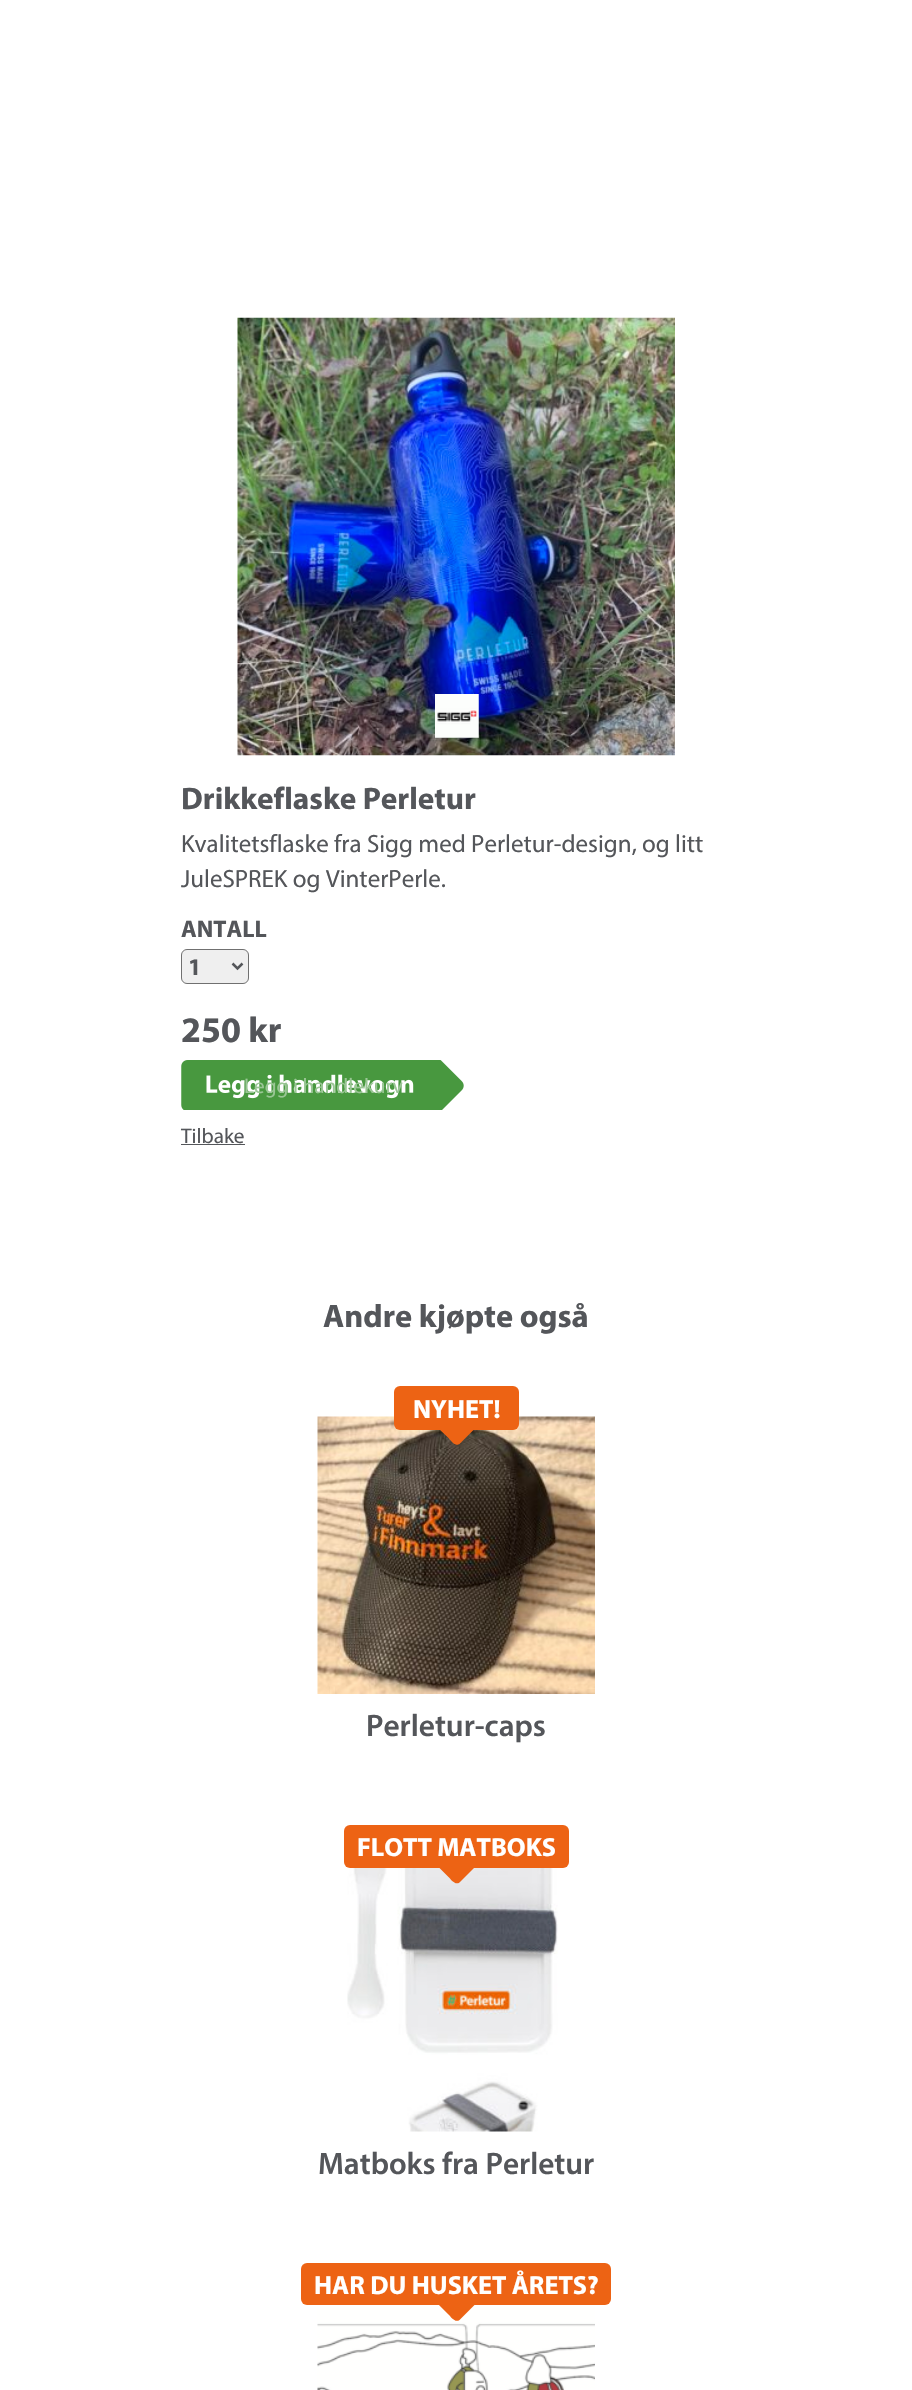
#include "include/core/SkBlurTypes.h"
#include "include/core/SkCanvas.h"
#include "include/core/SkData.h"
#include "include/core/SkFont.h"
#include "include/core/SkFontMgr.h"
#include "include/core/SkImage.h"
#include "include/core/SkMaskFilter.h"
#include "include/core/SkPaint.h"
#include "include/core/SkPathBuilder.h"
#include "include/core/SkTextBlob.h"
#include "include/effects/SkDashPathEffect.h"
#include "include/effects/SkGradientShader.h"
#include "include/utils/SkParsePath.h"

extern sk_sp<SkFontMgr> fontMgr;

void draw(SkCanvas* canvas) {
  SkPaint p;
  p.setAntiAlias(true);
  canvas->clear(SK_ColorWHITE);
  canvas->drawImageRect(SkImages::DeferredFromEncodedData(SkData::MakeFromFileName("images/1.png")), SkRect::MakeLTRB(237, 317, 675, 756), SkSamplingOptions());
  canvas->drawImageRect(SkImages::DeferredFromEncodedData(SkData::MakeFromFileName("images/2.png")), SkRect::MakeLTRB(435, 694, 479, 738), SkSamplingOptions());
  p.setColor(SkColorSetRGB(239, 239, 239));
  canvas->drawRoundRect(SkRect::MakeLTRB(181.5f, 949.5f, 248.5f, 983.5f), 5.5f, 5.5f, p);
  p.setStyle(SkPaint::kStroke_Style);
  p.setStrokeWidth(1);
  p.setColor(SkColorSetRGB(112, 112, 112));
  canvas->drawRoundRect(SkRect::MakeLTRB(181.5f, 949.5f, 248.5f, 983.5f), 5.5f, 5.5f, p);
  p.setStrokeWidth(2.5f);
  p.setColor(SkColorSetRGB(84, 86, 90));
  canvas->drawPath(SkPathBuilder().moveTo(232.5f, 963.5f).lineTo(237.5f, 968.5f).lineTo(242.5f, 963.5f).detach(), p);
  canvas->drawImageRect(SkImages::DeferredFromEncodedData(SkData::MakeFromFileName("images/3.png")), SkRect::MakeLTRB(181, 1060, 464, 1110), SkSamplingOptions());
  p.setStyle(SkPaint::kFill_Style);
  canvas->drawRect(SkRect::MakeLTRB(181, 1144, 245, 1145), p);
  canvas->drawImageRect(SkImages::DeferredFromEncodedData(SkData::MakeFromFileName("images/4.png")), SkRect::MakeLTRB(317, 1416, 595, 1694), SkSamplingOptions());
  p.setColor(SkColorSetRGB(237, 99, 20));
  canvas->drawPath(SkPathBuilder().moveTo(457, 1409).lineTo(475.5f, 1428).lineTo(459.5f, 1444).cubicTo(455, 1447, 451, 1440.5f, 448.5f, 1438).lineTo(438, 1428).close().detach(), p);
  canvas->drawRoundRect(SkRect::MakeLTRB(394, 1386, 519, 1430), 6, 6, p);
  canvas->drawImageRect(SkImages::DeferredFromEncodedData(SkData::MakeFromFileName("images/5.png")), SkRect::MakeLTRB(347, 1867, 558, 2132), SkSamplingOptions());
  canvas->drawPath(SkPathBuilder().moveTo(457, 1848).lineTo(475.5f, 1866.5f).lineTo(459.5f, 1882.5f).cubicTo(455, 1885.5f, 451, 1879.5f, 448.5f, 1877).lineTo(438, 1866.5f).close().detach(), p);
  canvas->drawRoundRect(SkRect::MakeLTRB(344, 1825, 569, 1868), 6, 6, p);
  canvas->drawImageRect(SkImages::DeferredFromEncodedData(SkData::MakeFromFileName("images/6.png")), SkRect::MakeLTRB(317, 2305, 595, 2390), SkSamplingOptions());
  canvas->drawPath(SkPathBuilder().moveTo(457, 2285.5f).lineTo(475.5f, 2304).lineTo(459.5f, 2320).cubicTo(455, 2323, 451, 2317, 448.5f, 2314.5f).lineTo(438, 2304).close().detach(), p);
  canvas->drawRoundRect(SkRect::MakeLTRB(301, 2263, 611, 2305), 6, 6, p);
  SkFont font1(fontMgr->matchFamilyStyle("Myriad", SkFontStyle::Bold()), 31.25f);
  font1.setSubpixel(true);
  p.setColor(SkColorSetRGB(84, 86, 90));
  canvas->drawString("Drikkeflaske Perletur", 181, 809, font1, p);
  SkFont font2(fontMgr->matchFamilyStyle("Myriad", SkFontStyle::Normal()), 25);
  font2.setSubpixel(true);
  canvas->drawString("Kvalitetsflaske fra Sigg med Perletur-design, og litt", 181, 852, font2, p);
  canvas->drawString("JuleSPREK og VinterPerle.", 181, 887, font2, p);
  SkFont font3(fontMgr->matchFamilyStyle("Myriad", SkFontStyle::Bold()), 24);
  font3.setSubpixel(true);
  canvas->drawString("ANTALL", 181, 937, font3, p);
  canvas->drawString("1", 188, 975, font3, p);
  SkFont font4(fontMgr->matchFamilyStyle("Myriad", SkFontStyle::Bold()), 36);
  font4.setSubpixel(true);
  canvas->drawString("250 kr", 181, 1042, font4, p);
  SkFont font5(fontMgr->matchFamilyStyle("Myriad", SkFontStyle::Normal()), 21.25f);
  font5.setSubpixel(true);
  p.setColor(SkColorSetRGB(154, 198, 149));
  canvas->drawString("Legg i handlekurv", 244, 1093, font5, p);
  p.setColor(SkColorSetRGB(84, 86, 90));
  canvas->drawString("Tilbake", 181, 1143, font5, p);
  SkFont font6(fontMgr->matchFamilyStyle("Myriad", SkFontStyle::Bold()), 32.5f);
  font6.setSubpixel(true);
  canvas->drawString("Andre kjøpte også", 323, 1327, font6, p);
  SkFont font7(fontMgr->matchFamilyStyle("Myriad", SkFontStyle::Bold()), 26.25f);
  font7.setSubpixel(true);
  p.setColor(SK_ColorWHITE);
  canvas->drawString("NYHET!", 413, 1418, font7, p);
  SkFont font8(fontMgr->matchFamilyStyle("Myriad", SkFontStyle(600, SkFontStyle::kNormal_Width, SkFontStyle::kUpright_Slant)), 31.25f);
  font8.setSubpixel(true);
  p.setColor(SkColorSetRGB(84, 86, 90));
  canvas->drawString("Perletur-caps", 366, 1736, font8, p);
  p.setColor(SK_ColorWHITE);
  canvas->drawString("FLOTT MATBOKS", 357, 1856, font7, p);
  p.setColor(SkColorSetRGB(84, 86, 90));
  canvas->drawString("Matboks fra Perletur", 318, 2174, font8, p);
  p.setColor(SK_ColorWHITE);
  canvas->drawString("HAR DU HUSKET ÅRETS?", 314, 2294, font7, p);
}
